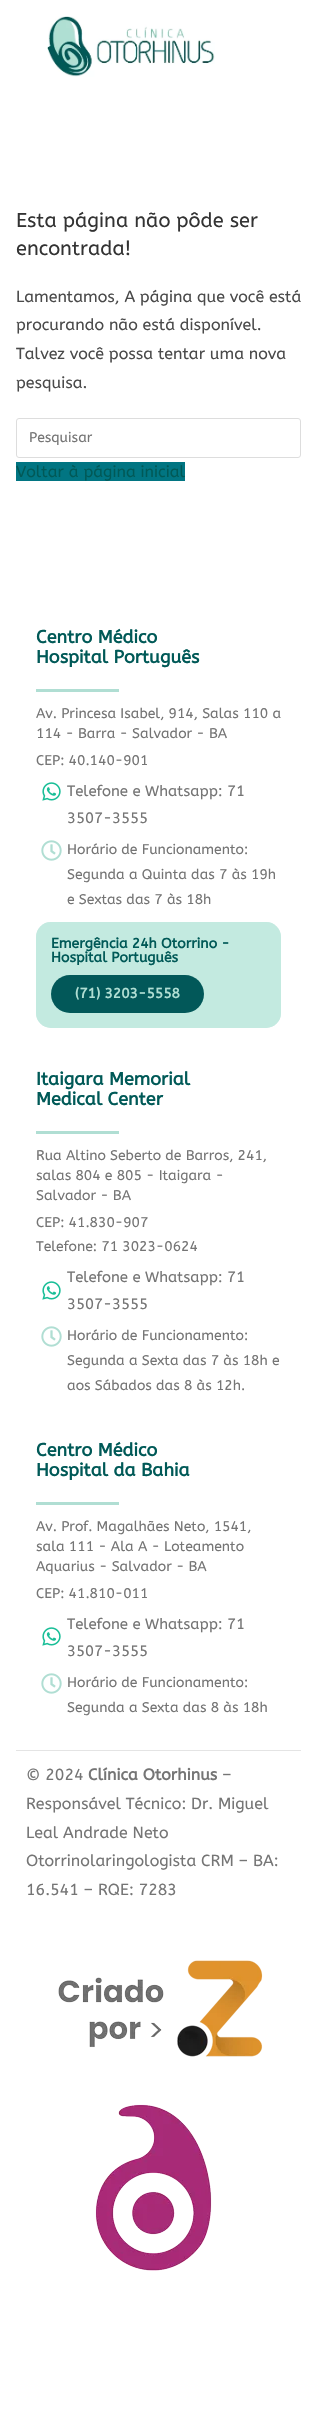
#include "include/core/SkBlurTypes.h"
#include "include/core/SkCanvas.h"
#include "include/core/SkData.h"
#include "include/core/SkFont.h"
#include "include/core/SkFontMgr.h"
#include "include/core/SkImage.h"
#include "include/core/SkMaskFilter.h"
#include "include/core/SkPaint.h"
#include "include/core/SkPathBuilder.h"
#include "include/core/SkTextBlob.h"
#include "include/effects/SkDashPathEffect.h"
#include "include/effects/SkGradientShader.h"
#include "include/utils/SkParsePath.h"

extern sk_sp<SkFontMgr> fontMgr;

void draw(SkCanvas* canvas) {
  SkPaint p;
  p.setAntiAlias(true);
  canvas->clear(SK_ColorWHITE);
  canvas->drawImageRect(SkImages::DeferredFromEncodedData(SkData::MakeFromFileName("images/1.png")), SkRect::MakeLTRB(47, 16, 215, 77), SkSamplingOptions());
  p.setStyle(SkPaint::kStroke_Style);
  p.setStrokeWidth(1);
  p.setColor(SkColorSetRGB(221, 221, 221));
  canvas->drawRoundRect(SkRect::MakeLTRB(16.5f, 418.5f, 300.5f, 457.5f), 2.5f, 2.5f, p);
  p.setStyle(SkPaint::kFill_Style);
  p.setColor(SkColorSetRGB(1, 117, 130));
  canvas->drawRect(SkRect::MakeLTRB(16, 462, 185, 481), p);
  p.setColor(SkColorSetRGB(176, 222, 211));
  canvas->drawRect(SkRect::MakeLTRB(36, 689, 119, 692), p);
  canvas->drawImageRect(SkImages::DeferredFromEncodedData(SkData::MakeFromFileName("images/2.png")), SkRect::MakeLTRB(42, 782, 61, 801), SkSamplingOptions());
  canvas->drawImageRect(SkImages::DeferredFromEncodedData(SkData::MakeFromFileName("images/3.png")), SkRect::MakeLTRB(41, 840, 62, 861), SkSamplingOptions());
  canvas->drawRoundRect(SkRect::MakeLTRB(36, 922, 281, 1028), 15, 15, p);
  p.setColor(SkColorSetARGB(128, 214, 245, 238));
  canvas->drawRoundRect(SkRect::MakeLTRB(36, 922, 281, 1028), 15, 15, p);
  p.setColor(SkColorSetRGB(2, 88, 89));
  canvas->drawRoundRect(SkRect::MakeLTRB(51, 975, 204, 1013), 19, 19, p);
  p.setColor(SkColorSetRGB(176, 222, 211));
  canvas->drawRect(SkRect::MakeLTRB(36, 1131, 119, 1134), p);
  canvas->drawImageRect(SkImages::DeferredFromEncodedData(SkData::MakeFromFileName("images/2.png")), SkRect::MakeLTRB(42, 1281, 61, 1300), SkSamplingOptions());
  canvas->drawImageRect(SkImages::DeferredFromEncodedData(SkData::MakeFromFileName("images/3.png")), SkRect::MakeLTRB(41, 1326, 62, 1347), SkSamplingOptions());
  canvas->drawRect(SkRect::MakeLTRB(36, 1502, 119, 1505), p);
  canvas->drawImageRect(SkImages::DeferredFromEncodedData(SkData::MakeFromFileName("images/2.png")), SkRect::MakeLTRB(42, 1627, 61, 1646), SkSamplingOptions());
  canvas->drawImageRect(SkImages::DeferredFromEncodedData(SkData::MakeFromFileName("images/3.png")), SkRect::MakeLTRB(41, 1673, 62, 1694), SkSamplingOptions());
  p.setColor(SkColorSetRGB(228, 228, 228));
  canvas->drawRect(SkRect::MakeLTRB(16, 1750, 301, 1751), p);
  canvas->drawImageRect(SkImages::DeferredFromEncodedData(SkData::MakeFromFileName("images/4.png")), SkRect::MakeLTRB(58, 1960, 263, 2057), SkSamplingOptions());
  canvas->drawImageRect(SkImages::DeferredFromEncodedData(SkData::MakeFromFileName("images/5.png")), SkRect::MakeLTRB(95, 2104, 212, 2271), SkSamplingOptions());
  SkFont font1(fontMgr->matchFamilyStyle("ABeeZee", SkFontStyle::Normal()), 20);
  font1.setSubpixel(true);
  p.setColor(SkColorSetRGB(51, 51, 51));
  canvas->drawString("Esta página não pôde ser", 16, 227, font1, p);
  canvas->drawString("encontrada!", 16, 255, font1, p);
  SkFont font2(fontMgr->matchFamilyStyle("ABeeZee", SkFontStyle::Normal()), 16);
  font2.setSubpixel(true);
  p.setColor(SkColorSetRGB(74, 74, 74));
  canvas->drawString("Lamentamos, A página que você está", 16, 302, font2, p);
  canvas->drawString("procurando não está disponível.", 16, 330, font2, p);
  canvas->drawString("Talvez você possa tentar uma nova", 16, 359, font2, p);
  canvas->drawString("pesquisa.", 16, 388, font2, p);
  SkFont font3(fontMgr->matchFamilyStyle("ABeeZee", SkFontStyle::Normal()), 14);
  font3.setSubpixel(true);
  p.setColor(SkColorSetRGB(117, 117, 117));
  canvas->drawString("Pesquisar", 29, 442, font3, p);
  p.setColor(SkColorSetRGB(0, 89, 87));
  canvas->drawString("Voltar à página inicial", 16, 477, font2, p);
  SkFont font4(fontMgr->matchFamilyStyle("ABeeZee", SkFontStyle::Bold()), 18);
  font4.setSubpixel(true);
  canvas->drawString("Centro Médico", 36, 643, font4, p);
  canvas->drawString("Hospital Português", 36, 663, font4, p);
  p.setColor(SkColorSetRGB(117, 117, 117));
  canvas->drawString("Av. Princesa Isabel, 914, Salas 110 a", 36, 718, font3, p);
  canvas->drawString("114 - Barra - Salvador - BA", 36, 738, font3, p);
  canvas->drawString("CEP: 40.140-901", 36, 765, font3, p);
  SkFont font5(fontMgr->matchFamilyStyle("ABeeZee", SkFontStyle::Normal()), 15);
  font5.setSubpixel(true);
  canvas->drawString("Telefone e Whatsapp: 71", 67, 796, font5, p);
  canvas->drawString("3507-3555", 67, 823, font5, p);
  canvas->drawString("Horário de Funcionamento:", 67, 854, font3, p);
  canvas->drawString("Segunda a Quinta das 7 às 19h", 67, 879, font3, p);
  canvas->drawString("e Sextas das 7 às 18h", 67, 904, font3, p);
  SkFont font6(fontMgr->matchFamilyStyle("ABeeZee", SkFontStyle::Bold()), 14);
  font6.setSubpixel(true);
  p.setColor(SkColorSetRGB(0, 89, 87));
  canvas->drawString("Emergência 24h Otorrino -", 51, 948, font6, p);
  canvas->drawString("Hospital Português", 51, 962, font6, p);
  p.setColor(SkColorSetRGB(176, 222, 211));
  canvas->drawString("(71) 3203-5558", 75, 998, font6, p);
  p.setColor(SkColorSetRGB(0, 89, 87));
  canvas->drawString("Itaigara Memorial", 36, 1085, font4, p);
  canvas->drawString("Medical Center", 36, 1105, font4, p);
  p.setColor(SkColorSetRGB(117, 117, 117));
  canvas->drawString("Rua Altino Seberto de Barros, 241,", 36, 1160, font3, p);
  canvas->drawString("salas 804 e 805 - Itaigara -", 36, 1180, font3, p);
  canvas->drawString("Salvador - BA", 36, 1200, font3, p);
  canvas->drawString("CEP: 41.830-907", 36, 1227, font3, p);
  canvas->drawString("Telefone: 71 3023-0624", 36, 1251, font3, p);
  canvas->drawString("Telefone e Whatsapp: 71", 67, 1282, font5, p);
  canvas->drawString("3507-3555", 67, 1309, font5, p);
  canvas->drawString("Horário de Funcionamento:", 67, 1340, font3, p);
  canvas->drawString("Segunda a Sexta das 7 às 18h e", 67, 1365, font3, p);
  canvas->drawString("aos Sábados das 8 às 12h.", 67, 1390, font3, p);
  p.setColor(SkColorSetRGB(0, 89, 87));
  canvas->drawString("Centro Médico", 36, 1456, font4, p);
  canvas->drawString("Hospital da Bahia", 36, 1476, font4, p);
  p.setColor(SkColorSetRGB(117, 117, 117));
  canvas->drawString("Av. Prof. Magalhães Neto, 1541,", 36, 1531, font3, p);
  canvas->drawString("sala 111 - Ala A - Loteamento", 36, 1551, font3, p);
  canvas->drawString("Aquarius - Salvador - BA", 36, 1571, font3, p);
  canvas->drawString("CEP: 41.810-011", 36, 1598, font3, p);
  canvas->drawString("Telefone e Whatsapp: 71", 67, 1629, font5, p);
  canvas->drawString("3507-3555", 67, 1656, font5, p);
  canvas->drawString("Horário de Funcionamento:", 67, 1687, font3, p);
  canvas->drawString("Segunda a Sexta das 8 às 18h", 67, 1712, font3, p);
  canvas->drawString("© 2024", 26, 1780, font2, p);
  SkFont font7(fontMgr->matchFamilyStyle("ABeeZee", SkFontStyle::Bold()), 16);
  font7.setSubpixel(true);
  canvas->drawString("Clínica Otorhinus", 88, 1780, font7, p);
  canvas->drawString("–", 222, 1780, font2, p);
  canvas->drawString("Responsável Técnico: Dr. Miguel", 26, 1809, font2, p);
  canvas->drawString("Leal Andrade Neto", 26, 1838, font2, p);
  canvas->drawString("Otorrinolaringologista CRM – BA:", 26, 1866, font2, p);
  canvas->drawString("16.541 – RQE: 7283", 26, 1895, font2, p);
}
